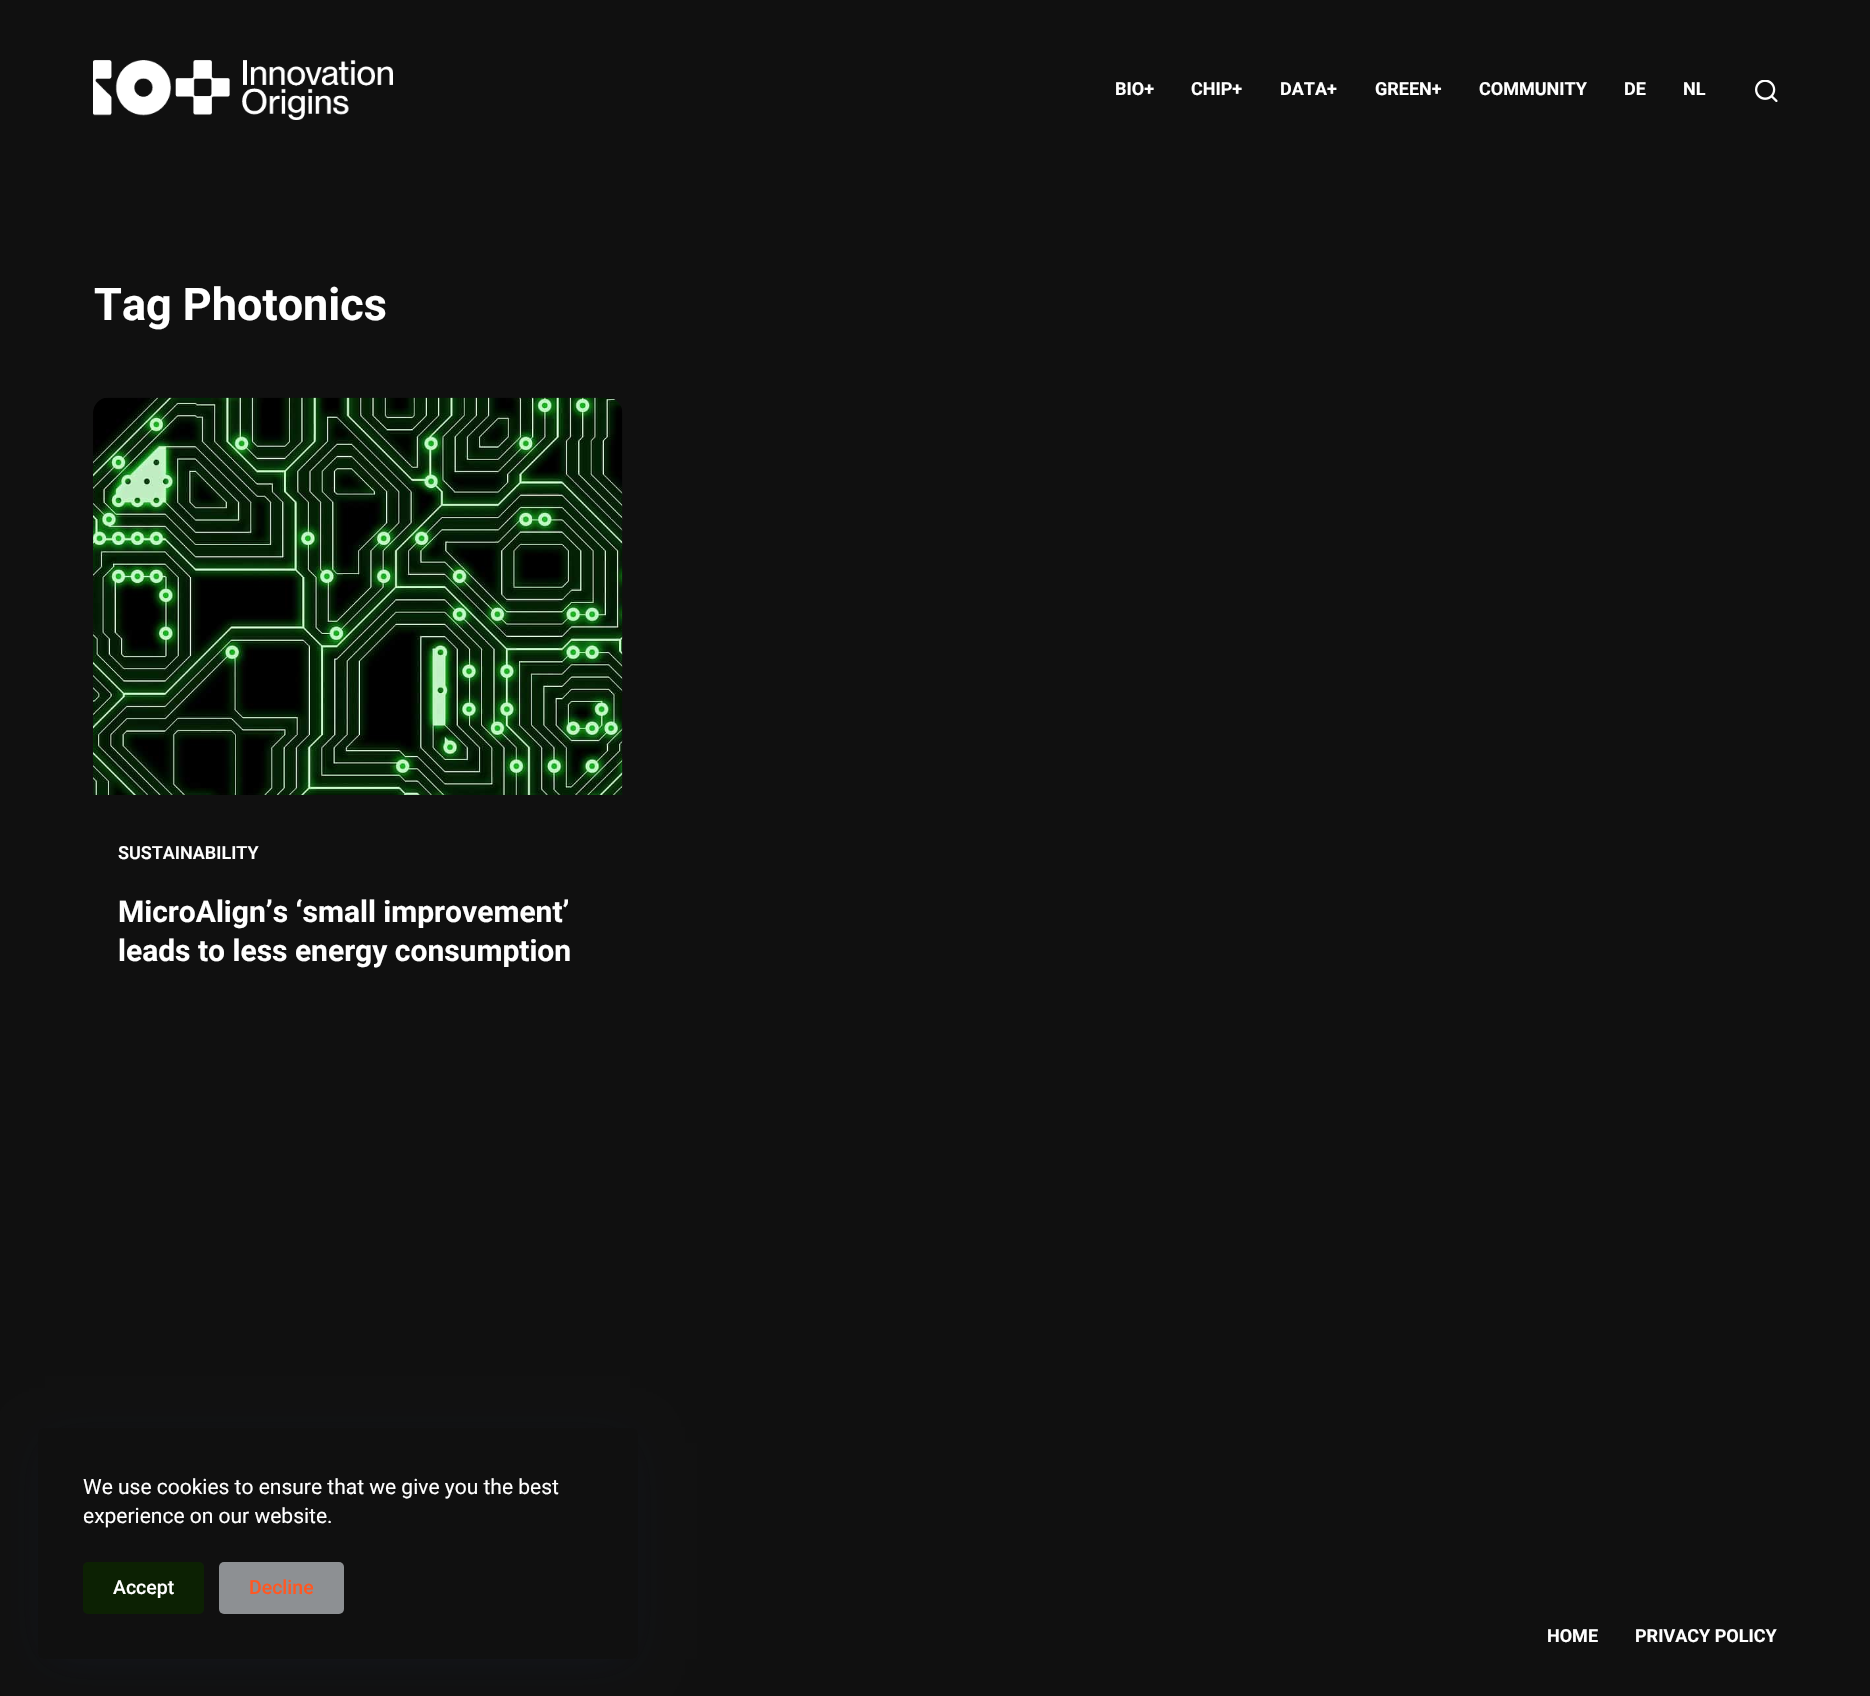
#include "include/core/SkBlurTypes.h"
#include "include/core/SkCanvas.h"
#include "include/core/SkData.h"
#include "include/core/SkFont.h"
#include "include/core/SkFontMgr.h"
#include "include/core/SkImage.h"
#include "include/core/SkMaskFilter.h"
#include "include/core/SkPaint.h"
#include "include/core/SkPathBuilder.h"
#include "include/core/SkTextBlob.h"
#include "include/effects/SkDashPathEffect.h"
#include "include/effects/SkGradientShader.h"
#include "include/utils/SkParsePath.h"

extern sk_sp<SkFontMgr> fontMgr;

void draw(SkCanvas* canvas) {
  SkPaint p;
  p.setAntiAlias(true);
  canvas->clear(SkColorSetRGB(16, 16, 16));
  canvas->drawImageRect(SkImages::DeferredFromEncodedData(SkData::MakeFromFileName("images/1.png")), SkRect::MakeLTRB(93, 60, 393, 120), SkSamplingOptions());
  canvas->drawImageRect(SkImages::DeferredFromEncodedData(SkData::MakeFromFileName("images/2.png")), SkRect::MakeLTRB(1755, 80, 1778, 102), SkSamplingOptions());
  canvas->drawImageRect(SkImages::DeferredFromEncodedData(SkData::MakeFromFileName("images/3.png")), SkRect::MakeLTRB(93, 397, 623, 795), SkSamplingOptions());
  p.setColor(SkColorSetARGB(38, 34, 56, 101));
  p.setMaskFilter(SkMaskFilter::MakeBlur(kNormal_SkBlurStyle, 22.5f));
  canvas->drawRect(SkRect::MakeLTRB(45, 1443, 630, 1659), p);
  p.setMaskFilter(nullptr);
  p.setColor(SkColorSetRGB(16, 16, 16));
  canvas->drawRoundRect(SkRect::MakeLTRB(38, 1428, 638, 1659), 5, 5, p);
  p.setColor(SkColorSetRGB(12, 33, 3));
  canvas->drawRoundRect(SkRect::MakeLTRB(83, 1562, 204, 1614), 5, 5, p);
  p.setColor(SkColorSetRGB(141, 144, 147));
  canvas->drawRoundRect(SkRect::MakeLTRB(219, 1562, 344, 1614), 5, 5, p);
  SkFont font1(fontMgr->matchFamilyStyle("Roboto", SkFontStyle::Bold()), 18);
  font1.setSubpixel(true);
  p.setColor(SK_ColorWHITE);
  canvas->drawString("BIO+", 1115, 95, font1, p);
  canvas->drawString("CHIP+", 1191, 95, font1, p);
  canvas->drawString("DATA+", 1280, 95, font1, p);
  canvas->drawString("GREEN+", 1375, 95, font1, p);
  canvas->drawString("COMMUNITY", 1479, 95, font1, p);
  canvas->drawString("DE", 1624, 95, font1, p);
  canvas->drawString("NL", 1683, 95, font1, p);
  SkFont font2(fontMgr->matchFamilyStyle("Roboto", SkFontStyle::Bold()), 45);
  font2.setSubpixel(true);
  canvas->drawString("Tag Photonics", 94, 320, font2, p);
  SkFont font3(fontMgr->matchFamilyStyle("Roboto", SkFontStyle(600, SkFontStyle::kNormal_Width, SkFontStyle::kUpright_Slant)), 18);
  font3.setSubpixel(true);
  canvas->drawString("SUSTAINABILITY", 118, 859, font3, p);
  SkFont font4(fontMgr->matchFamilyStyle("Roboto", SkFontStyle::Bold()), 30);
  font4.setSubpixel(true);
  canvas->drawString("MicroAlign’s ‘small improvement’", 118, 922, font4, p);
  canvas->drawString("leads to less energy consumption", 118, 961, font4, p);
  canvas->drawString("HOME", 1547, 1642, font1, p);
  canvas->drawString("PRIVACY POLICY", 1635, 1642, font1, p);
  SkFont font5(fontMgr->matchFamilyStyle("Roboto", SkFontStyle::Normal()), 21);
  font5.setSubpixel(true);
  canvas->drawString("We use cookies to ensure that we give you the best", 83, 1494, font5, p);
  canvas->drawString("experience on our website.", 83, 1523, font5, p);
  SkFont font6(fontMgr->matchFamilyStyle("Roboto", SkFontStyle(500, SkFontStyle::kNormal_Width, SkFontStyle::kUpright_Slant)), 19.5f);
  font6.setSubpixel(true);
  canvas->drawString("Accept", 113, 1594, font6, p);
  p.setColor(SkColorSetRGB(255, 88, 35));
  canvas->drawString("Decline", 249, 1594, font6, p);
}
